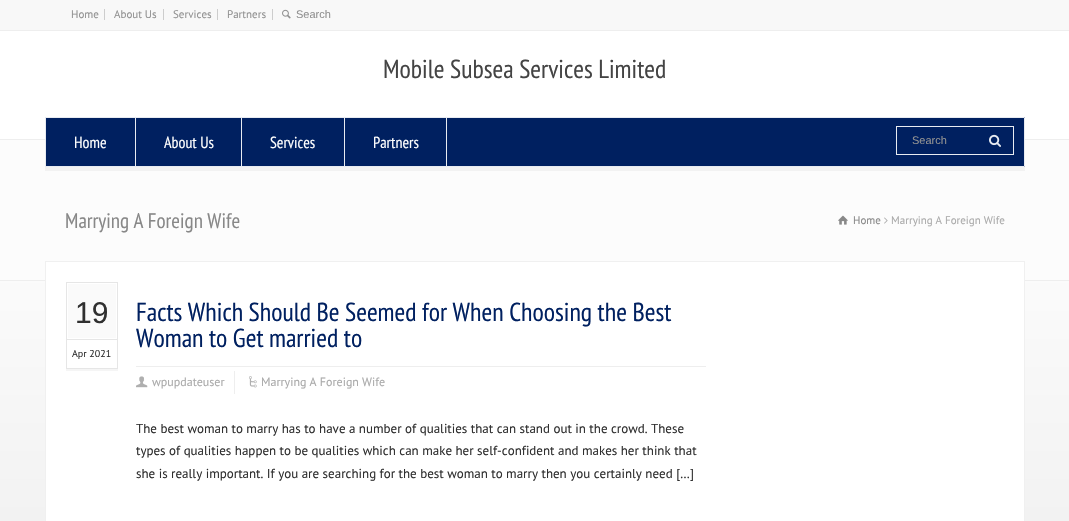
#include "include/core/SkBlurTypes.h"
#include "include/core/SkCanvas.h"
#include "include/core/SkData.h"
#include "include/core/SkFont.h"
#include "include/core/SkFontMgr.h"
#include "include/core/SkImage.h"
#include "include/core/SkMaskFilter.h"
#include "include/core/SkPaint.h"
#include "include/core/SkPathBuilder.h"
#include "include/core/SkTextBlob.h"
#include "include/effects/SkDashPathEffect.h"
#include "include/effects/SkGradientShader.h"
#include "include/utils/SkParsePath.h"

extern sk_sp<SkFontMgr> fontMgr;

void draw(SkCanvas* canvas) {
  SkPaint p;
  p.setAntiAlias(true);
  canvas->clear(SK_ColorWHITE);
  p.setColor(SkColorSetRGB(248, 248, 248));
  canvas->drawRect(SkRect::MakeLTRB(0, 0, 1069, 30), p);
  p.setColor(SkColorSetRGB(238, 238, 238));
  canvas->drawRect(SkRect::MakeLTRB(0, 30, 1069, 31), p);
  p.setColor(SkColorSetRGB(205, 205, 205));
  canvas->drawRect(SkRect::MakeLTRB(104, 9, 105, 20), p);
  canvas->drawRect(SkRect::MakeLTRB(163, 9, 164, 20), p);
  canvas->drawRect(SkRect::MakeLTRB(217, 9, 218, 20), p);
  canvas->drawRect(SkRect::MakeLTRB(272, 9, 273, 20), p);
  canvas->drawImageRect(SkImages::DeferredFromEncodedData(SkData::MakeFromFileName("images/1.png")), SkRect::MakeLTRB(282, 9, 291, 19), SkSamplingOptions());
  p.setColor(SkColorSetRGB(252, 252, 252));
  canvas->drawRect(SkRect::MakeLTRB(0, 140, 1069, 280), p);
  p.setColor(SkColorSetRGB(242, 242, 242));
  canvas->drawRect(SkRect::MakeLTRB(45, 167, 1025, 171), p);
  p.setColor(SkColorSetRGB(238, 238, 238));
  canvas->drawRect(SkRect::MakeLTRB(0, 139, 1069, 140), p);
  p.setColor(SkColorSetRGB(0, 32, 96));
  canvas->drawRect(SkRect::MakeLTRB(45, 117, 1025, 167), p);
  p.setColor(SkColorSetRGB(232, 235, 241));
  canvas->drawPath(SkPathBuilder().moveTo(45, 117).lineTo(1025, 117).lineTo(1024, 118).lineTo(45, 118).close().detach(), p);
  p.setColor(SkColorSetARGB(232, 255, 255, 255));
  canvas->drawPath(SkPathBuilder().moveTo(1025, 117).lineTo(1025, 167).lineTo(1024, 166).lineTo(1024, 118).close().detach(), p);
  canvas->drawPath(SkPathBuilder().moveTo(1025, 167).lineTo(45, 167).lineTo(45, 166).lineTo(1024, 166).close().detach(), p);
  p.setColor(SkColorSetRGB(232, 235, 241));
  canvas->drawRect(SkRect::MakeLTRB(135, 118, 136, 166), p);
  canvas->drawRect(SkRect::MakeLTRB(45, 118, 46, 166), p);
  canvas->drawRect(SkRect::MakeLTRB(241, 118, 242, 166), p);
  canvas->drawRect(SkRect::MakeLTRB(344, 118, 345, 166), p);
  canvas->drawRect(SkRect::MakeLTRB(446, 118, 447, 166), p);
  p.setStyle(SkPaint::kStroke_Style);
  p.setStrokeWidth(1);
  canvas->drawRect(SkRect::MakeLTRB(896.5f, 126.5f, 1013.5f, 154.5f), p);
  canvas->drawImageRect(SkImages::DeferredFromEncodedData(SkData::MakeFromFileName("images/2.png")), SkRect::MakeLTRB(989, 134, 1001, 147), SkSamplingOptions());
  p.setStyle(SkPaint::kFill_Style);
  {
    const SkColor colors[] = {SkColorSetRGB(242, 242, 242), SK_ColorWHITE, SkColorSetRGB(242, 242, 242)};
    const float stops[] = {0, 0.3f, 1};
    const SkPoint ends[] = {{535, 0}, {535, 521}};
    p.setShader(SkGradientShader::MakeLinear(ends, colors, stops, 3, SkTileMode::kClamp));
    p.setAlpha(255);
  }
  canvas->drawRect(SkRect::MakeLTRB(0, 281, 1069, 521), p);
  p.setShader(nullptr);
  p.setColor(SkColorSetRGB(238, 238, 238));
  canvas->drawRect(SkRect::MakeLTRB(0, 280, 1069, 281), p);
  canvas->drawImageRect(SkImages::DeferredFromEncodedData(SkData::MakeFromFileName("images/3.png")), SkRect::MakeLTRB(838, 215, 848, 225), SkSamplingOptions());
  canvas->drawImageRect(SkImages::DeferredFromEncodedData(SkData::MakeFromFileName("images/4.png")), SkRect::MakeLTRB(884, 217, 888, 224), SkSamplingOptions());
  p.setColor(SK_ColorWHITE);
  canvas->drawRect(SkRect::MakeLTRB(45.5f, 261.5f, 1024.5f, 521.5f), p);
  p.setStyle(SkPaint::kStroke_Style);
  p.setColor(SkColorSetRGB(240, 240, 240));
  canvas->drawRect(SkRect::MakeLTRB(45.5f, 261.5f, 1024.5f, 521.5f), p);
  p.setStyle(SkPaint::kFill_Style);
  p.setColor(SkColorSetRGB(245, 245, 245));
  canvas->drawRect(SkRect::MakeLTRB(66, 369, 118, 371), p);
  p.setColor(SkColorSetRGB(250, 250, 250));
  canvas->drawRect(SkRect::MakeLTRB(68, 284, 116, 367), p);
  p.setStyle(SkPaint::kStroke_Style);
  p.setColor(SkColorSetRGB(230, 230, 230));
  canvas->drawRect(SkRect::MakeLTRB(66.5f, 282.5f, 117.5f, 368.5f), p);
  p.setStyle(SkPaint::kFill_Style);
  p.setColor(SK_ColorWHITE);
  canvas->drawRect(SkRect::MakeLTRB(67, 338, 117, 339), p);
  p.setColor(SkColorSetARGB(230, 255, 255, 255));
  canvas->drawRect(SkRect::MakeLTRB(68, 340, 116, 367), p);
  p.setColor(SkColorSetRGB(230, 230, 230));
  canvas->drawRect(SkRect::MakeLTRB(67, 339, 117, 340), p);
  p.setColor(SkColorSetRGB(238, 238, 238));
  canvas->drawRect(SkRect::MakeLTRB(136, 366, 706, 367), p);
  canvas->drawRect(SkRect::MakeLTRB(234, 371, 235, 394), p);
  canvas->drawImageRect(SkImages::DeferredFromEncodedData(SkData::MakeFromFileName("images/5.png")), SkRect::MakeLTRB(136, 376, 148, 388), SkSamplingOptions());
  canvas->drawImageRect(SkImages::DeferredFromEncodedData(SkData::MakeFromFileName("images/6.png")), SkRect::MakeLTRB(249, 376, 257, 388), SkSamplingOptions());
  SkFont font1(fontMgr->matchFamilyStyle("PT Sans", SkFontStyle::Normal()), 11);
  font1.setSubpixel(true);
  p.setColor(SkColorSetRGB(145, 145, 145));
  canvas->drawString("Home", 71, 18, font1, p);
  canvas->drawString("About Us", 114, 18, font1, p);
  canvas->drawString("Services", 173, 18, font1, p);
  canvas->drawString("Partners", 227, 18, font1, p);
  SkFont font2(fontMgr->matchFamilyStyle("Liberation Sans", SkFontStyle::Normal()), 11);
  font2.setSubpixel(true);
  canvas->drawString("Search", 296, 18, font2, p);
  SkFont font3(fontMgr->matchFamilyStyle("PT Sans Narrow", SkFontStyle::Normal()), 26);
  font3.setSubpixel(true);
  p.setColor(SkColorSetRGB(68, 68, 68));
  canvas->drawString("Mobile Subsea Services Limited", 383, 78, font3, p);
  SkFont font4(fontMgr->matchFamilyStyle("PT Sans Narrow", SkFontStyle::Normal()), 16);
  font4.setSubpixel(true);
  p.setColor(SK_ColorWHITE);
  canvas->drawString("Home", 74, 148, font4, p);
  canvas->drawString("About Us", 164, 148, font4, p);
  canvas->drawString("Services", 270, 148, font4, p);
  canvas->drawString("Partners", 373, 148, font4, p);
  p.setColor(SkColorSetRGB(145, 145, 145));
  canvas->drawString("Search", 912, 144, font2, p);
  SkFont font5(fontMgr->matchFamilyStyle("PT Sans Narrow", SkFontStyle::Normal()), 21);
  font5.setSubpixel(true);
  p.setColor(SkColorSetRGB(136, 136, 136));
  canvas->drawString("Marrying A Foreign Wife", 65, 228, font5, p);
  canvas->drawString("Home", 853, 224, font1, p);
  p.setColor(SkColorSetRGB(170, 170, 170));
  canvas->drawString("Marrying A Foreign Wife", 891, 224, font1, p);
  SkFont font6(fontMgr->matchFamilyStyle("Liberation Sans", SkFontStyle::Normal()), 30);
  font6.setSubpixel(true);
  p.setColor(SkColorSetRGB(48, 48, 48));
  canvas->drawString("19", 75, 323, font6, p);
  SkFont font7(fontMgr->matchFamilyStyle("PT Sans", SkFontStyle::Normal()), 10);
  font7.setSubpixel(true);
  canvas->drawString("Apr 2021", 72, 357, font7, p);
  p.setColor(SkColorSetRGB(0, 32, 96));
  canvas->drawString("Facts Which Should Be Seemed for When Choosing the Best", 136, 321, font3, p);
  canvas->drawString("Woman to Get married to", 136, 347, font3, p);
  SkFont font8(fontMgr->matchFamilyStyle("PT Sans", SkFontStyle::Normal()), 12);
  font8.setSubpixel(true);
  p.setColor(SkColorSetRGB(170, 170, 170));
  canvas->drawString("wpupdateuser", 152, 386, font8, p);
  canvas->drawString("Marrying A Foreign Wife", 261, 386, font8, p);
  SkFont font9(fontMgr->matchFamilyStyle("PT Sans", SkFontStyle::Normal()), 13);
  font9.setSubpixel(true);
  p.setColor(SkColorSetRGB(48, 48, 48));
  canvas->drawString("The best woman to marry has to have a number of qualities that can stand out in the crowd. These", 136, 433, font9, p);
  canvas->drawString("types of qualities happen to be qualities which can make her self-confident and makes her think that", 136, 455, font9, p);
  canvas->drawString("she is really important. If you are searching for the best woman to marry then you certainly need […]", 136, 478, font9, p);
}
